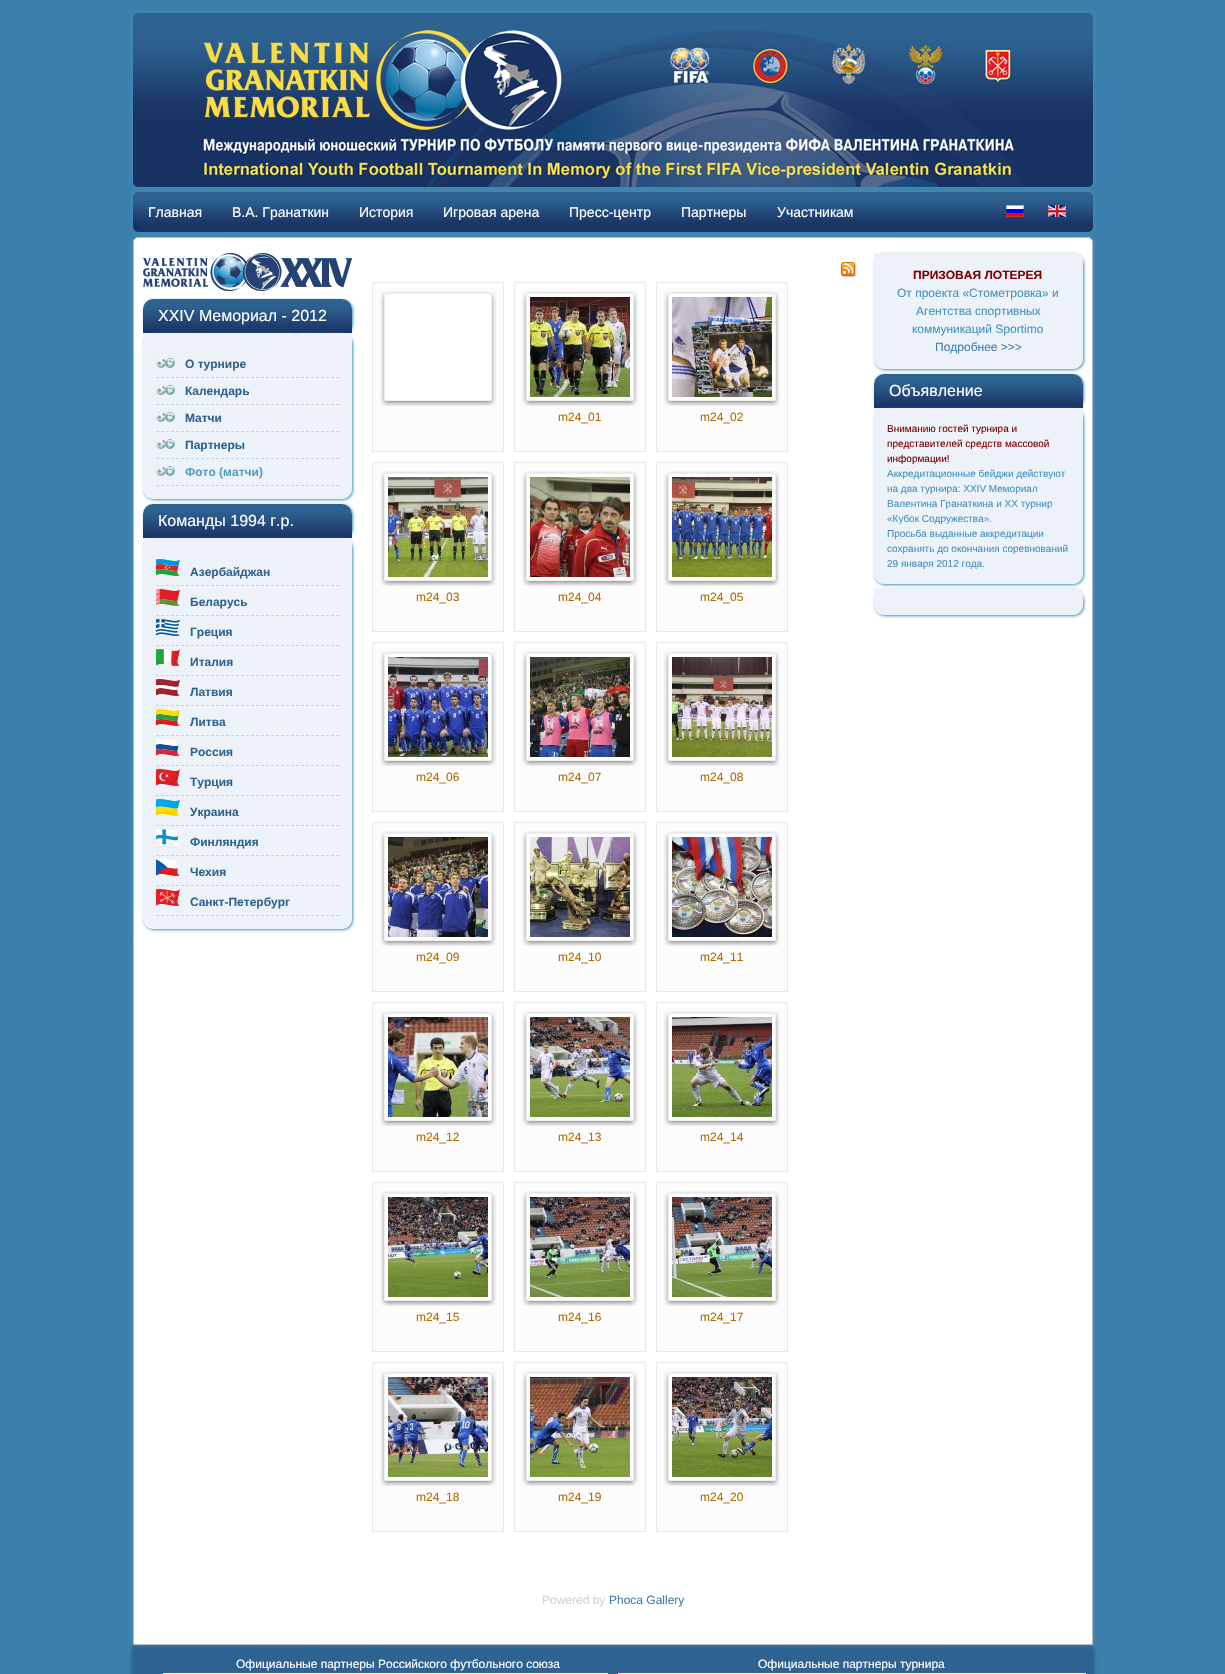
#include "include/core/SkBlurTypes.h"
#include "include/core/SkCanvas.h"
#include "include/core/SkData.h"
#include "include/core/SkFont.h"
#include "include/core/SkFontMgr.h"
#include "include/core/SkImage.h"
#include "include/core/SkMaskFilter.h"
#include "include/core/SkPaint.h"
#include "include/core/SkPathBuilder.h"
#include "include/core/SkTextBlob.h"
#include "include/effects/SkDashPathEffect.h"
#include "include/effects/SkGradientShader.h"
#include "include/utils/SkParsePath.h"

extern sk_sp<SkFontMgr> fontMgr;

void draw(SkCanvas* canvas) {
  SkPaint p;
  p.setAntiAlias(true);
  canvas->clear(SkColorSetRGB(59, 128, 172));
  p.setColor(SkColorSetRGB(67, 146, 189));
  p.setMaskFilter(SkMaskFilter::MakeBlur(kNormal_SkBlurStyle, 2.5f));
  canvas->drawRoundRect(SkRect::MakeLTRB(133, 13, 1093, 187), 5, 5, p);
  p.setMaskFilter(nullptr);
  canvas->drawImageRect(SkImages::DeferredFromEncodedData(SkData::MakeFromFileName("images/1.png")), SkRect::MakeLTRB(133, 13, 1093, 187), SkSamplingOptions());
  canvas->drawImageRect(SkImages::DeferredFromEncodedData(SkData::MakeFromFileName("images/2.png")), SkRect::MakeLTRB(203, 30, 562, 130), SkSamplingOptions());
  p.setMaskFilter(SkMaskFilter::MakeBlur(kNormal_SkBlurStyle, 2.5f));
  canvas->drawRoundRect(SkRect::MakeLTRB(133, 192, 1093, 232), 5, 5, p);
  p.setMaskFilter(nullptr);
  canvas->drawImageRect(SkImages::DeferredFromEncodedData(SkData::MakeFromFileName("images/3.png")), SkRect::MakeLTRB(133, 192, 1093, 232), SkSamplingOptions());
  canvas->drawImageRect(SkImages::DeferredFromEncodedData(SkData::MakeFromFileName("images/4.png")), SkRect::MakeLTRB(1006, 205, 1024, 217), SkSamplingOptions());
  canvas->drawImageRect(SkImages::DeferredFromEncodedData(SkData::MakeFromFileName("images/5.png")), SkRect::MakeLTRB(1048, 205, 1066, 217), SkSamplingOptions());
  p.setColor(SkColorSetRGB(32, 69, 117));
  p.setMaskFilter(SkMaskFilter::MakeBlur(kNormal_SkBlurStyle, 2.5f));
  canvas->drawRoundRect(SkRect::MakeLTRB(133, 1645, 1093, 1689), 7, 7, p);
  p.setMaskFilter(nullptr);
  p.setColor(SkColorSetRGB(46, 98, 144));
  canvas->drawRect(SkRect::MakeLTRB(133, 1645, 1093, 1674), p);
  p.setColor(SkColorSetRGB(67, 146, 189));
  p.setMaskFilter(SkMaskFilter::MakeBlur(kNormal_SkBlurStyle, 2.5f));
  canvas->drawRoundRect(SkRect::MakeLTRB(133, 237, 1093, 1645), 5, 5, p);
  p.setMaskFilter(nullptr);
  p.setColor(SK_ColorWHITE);
  canvas->drawPath(SkPathBuilder().moveTo(138, 237.5f).lineTo(1088, 237.5f).cubicTo(1090.5f, 237.5f, 1092.5f, 239.5f, 1092.5f, 242).lineTo(1092.5f, 1644.5f).lineTo(133.5f, 1644.5f).lineTo(133.5f, 242).cubicTo(133.5f, 239.5f, 135.5f, 237.5f, 138, 237.5f).close().detach(), p);
  p.setStyle(SkPaint::kStroke_Style);
  p.setStrokeWidth(1);
  p.setColor(SkColorSetRGB(186, 185, 185));
  canvas->drawPath(SkPathBuilder().moveTo(138, 237.5f).lineTo(1088, 237.5f).cubicTo(1090.5f, 237.5f, 1092.5f, 239.5f, 1092.5f, 242).lineTo(1092.5f, 1644.5f).lineTo(133.5f, 1644.5f).lineTo(133.5f, 242).cubicTo(133.5f, 239.5f, 135.5f, 237.5f, 138, 237.5f).close().detach(), p);
  canvas->drawImageRect(SkImages::DeferredFromEncodedData(SkData::MakeFromFileName("images/6.png")), SkRect::MakeLTRB(143, 253, 352, 291), SkSamplingOptions());
  p.setStyle(SkPaint::kFill_Style);
  p.setColor(SkColorSetRGB(67, 146, 189));
  p.setMaskFilter(SkMaskFilter::MakeBlur(kNormal_SkBlurStyle, 1.5f));
  canvas->drawRoundRect(SkRect::MakeLTRB(144, 300, 353, 334), 10, 10, p);
  p.setMaskFilter(nullptr);
  p.setColor(SK_ColorWHITE);
  canvas->drawPath(SkPathBuilder().moveTo(153, 299).lineTo(342, 299).cubicTo(347.5f, 299, 352, 303.5f, 352, 309).lineTo(352, 333).lineTo(143, 333).lineTo(143, 309).cubicTo(143, 303.5f, 147.5f, 299, 153, 299).close().detach(), p);
  canvas->drawImageRect(SkImages::DeferredFromEncodedData(SkData::MakeFromFileName("images/7.png")), SkRect::MakeLTRB(143, 299, 352, 333), SkSamplingOptions());
  p.setColor(SkColorSetRGB(67, 146, 189));
  p.setMaskFilter(SkMaskFilter::MakeBlur(kNormal_SkBlurStyle, 1.5f));
  canvas->drawRoundRect(SkRect::MakeLTRB(144, 334, 353, 500), 10, 10, p);
  p.setMaskFilter(nullptr);
  p.setColor(SkColorSetRGB(237, 241, 248));
  canvas->drawPath(SkPathBuilder().moveTo(143, 333).lineTo(352, 333).lineTo(352, 489).cubicTo(352, 494.5f, 347.5f, 499, 342, 499).lineTo(153, 499).cubicTo(147.5f, 499, 143, 494.5f, 143, 489).close().detach(), p);
  p.setStyle(SkPaint::kStroke_Style);
  p.setColor(SkColorSetRGB(193, 211, 230));
  p.setPathEffect(SkDashPathEffect::Make({{3, 2}}, 0));
  canvas->drawPath(SkPathBuilder().moveTo(156, 377.5f).lineTo(339, 377.5f).detach(), p);
  p.setPathEffect(nullptr);
  canvas->drawImageRect(SkImages::DeferredFromEncodedData(SkData::MakeFromFileName("images/8.png")), SkRect::MakeLTRB(156, 358, 175, 368), SkSamplingOptions());
  p.setPathEffect(SkDashPathEffect::Make({{3, 2}}, 0));
  canvas->drawPath(SkPathBuilder().moveTo(156, 404.5f).lineTo(339, 404.5f).detach(), p);
  p.setPathEffect(nullptr);
  canvas->drawImageRect(SkImages::DeferredFromEncodedData(SkData::MakeFromFileName("images/8.png")), SkRect::MakeLTRB(156, 385, 175, 395), SkSamplingOptions());
  p.setPathEffect(SkDashPathEffect::Make({{3, 2}}, 0));
  canvas->drawPath(SkPathBuilder().moveTo(156, 431.5f).lineTo(339, 431.5f).detach(), p);
  p.setPathEffect(nullptr);
  canvas->drawImageRect(SkImages::DeferredFromEncodedData(SkData::MakeFromFileName("images/8.png")), SkRect::MakeLTRB(156, 412, 175, 422), SkSamplingOptions());
  p.setPathEffect(SkDashPathEffect::Make({{3, 2}}, 0));
  canvas->drawPath(SkPathBuilder().moveTo(156, 458.5f).lineTo(339, 458.5f).detach(), p);
  p.setPathEffect(nullptr);
  canvas->drawImageRect(SkImages::DeferredFromEncodedData(SkData::MakeFromFileName("images/8.png")), SkRect::MakeLTRB(156, 439, 175, 449), SkSamplingOptions());
  p.setPathEffect(SkDashPathEffect::Make({{3, 2}}, 0));
  canvas->drawPath(SkPathBuilder().moveTo(156, 485.5f).lineTo(339, 485.5f).detach(), p);
  p.setPathEffect(nullptr);
  canvas->drawImageRect(SkImages::DeferredFromEncodedData(SkData::MakeFromFileName("images/8.png")), SkRect::MakeLTRB(156, 466, 175, 476), SkSamplingOptions());
  p.setStyle(SkPaint::kFill_Style);
  p.setColor(SkColorSetRGB(67, 146, 189));
  p.setMaskFilter(SkMaskFilter::MakeBlur(kNormal_SkBlurStyle, 1.5f));
  canvas->drawRoundRect(SkRect::MakeLTRB(144, 505, 353, 539), 10, 10, p);
  p.setMaskFilter(nullptr);
  p.setColor(SK_ColorWHITE);
  canvas->drawPath(SkPathBuilder().moveTo(153, 504).lineTo(342, 504).cubicTo(347.5f, 504, 352, 508.5f, 352, 514).lineTo(352, 538).lineTo(143, 538).lineTo(143, 514).cubicTo(143, 508.5f, 147.5f, 504, 153, 504).close().detach(), p);
  canvas->drawImageRect(SkImages::DeferredFromEncodedData(SkData::MakeFromFileName("images/7.png")), SkRect::MakeLTRB(143, 504, 352, 538), SkSamplingOptions());
  p.setColor(SkColorSetRGB(67, 146, 189));
  p.setMaskFilter(SkMaskFilter::MakeBlur(kNormal_SkBlurStyle, 1.5f));
  canvas->drawRoundRect(SkRect::MakeLTRB(144, 539, 353, 930), 10, 10, p);
  p.setMaskFilter(nullptr);
  p.setColor(SkColorSetRGB(237, 241, 248));
  canvas->drawPath(SkPathBuilder().moveTo(143, 538).lineTo(352, 538).lineTo(352, 919).cubicTo(352, 924.5f, 347.5f, 929, 342, 929).lineTo(153, 929).cubicTo(147.5f, 929, 143, 924.5f, 143, 919).close().detach(), p);
  p.setStyle(SkPaint::kStroke_Style);
  p.setColor(SkColorSetRGB(193, 211, 230));
  p.setPathEffect(SkDashPathEffect::Make({{3, 2}}, 0));
  canvas->drawPath(SkPathBuilder().moveTo(156, 585.5f).lineTo(339, 585.5f).detach(), p);
  p.setPathEffect(nullptr);
  canvas->drawImageRect(SkImages::DeferredFromEncodedData(SkData::MakeFromFileName("images/9.png")), SkRect::MakeLTRB(156, 559, 180, 576), SkSamplingOptions());
  p.setPathEffect(SkDashPathEffect::Make({{3, 2}}, 0));
  canvas->drawPath(SkPathBuilder().moveTo(156, 615.5f).lineTo(339, 615.5f).detach(), p);
  p.setPathEffect(nullptr);
  canvas->drawImageRect(SkImages::DeferredFromEncodedData(SkData::MakeFromFileName("images/10.png")), SkRect::MakeLTRB(156, 589, 180, 606), SkSamplingOptions());
  p.setPathEffect(SkDashPathEffect::Make({{3, 2}}, 0));
  canvas->drawPath(SkPathBuilder().moveTo(156, 645.5f).lineTo(339, 645.5f).detach(), p);
  p.setPathEffect(nullptr);
  canvas->drawImageRect(SkImages::DeferredFromEncodedData(SkData::MakeFromFileName("images/11.png")), SkRect::MakeLTRB(156, 619, 180, 636), SkSamplingOptions());
  p.setPathEffect(SkDashPathEffect::Make({{3, 2}}, 0));
  canvas->drawPath(SkPathBuilder().moveTo(156, 675.5f).lineTo(339, 675.5f).detach(), p);
  p.setPathEffect(nullptr);
  canvas->drawImageRect(SkImages::DeferredFromEncodedData(SkData::MakeFromFileName("images/12.png")), SkRect::MakeLTRB(156, 649, 180, 666), SkSamplingOptions());
  p.setPathEffect(SkDashPathEffect::Make({{3, 2}}, 0));
  canvas->drawPath(SkPathBuilder().moveTo(156, 705.5f).lineTo(339, 705.5f).detach(), p);
  p.setPathEffect(nullptr);
  canvas->drawImageRect(SkImages::DeferredFromEncodedData(SkData::MakeFromFileName("images/13.png")), SkRect::MakeLTRB(156, 679, 180, 696), SkSamplingOptions());
  p.setPathEffect(SkDashPathEffect::Make({{3, 2}}, 0));
  canvas->drawPath(SkPathBuilder().moveTo(156, 735.5f).lineTo(339, 735.5f).detach(), p);
  p.setPathEffect(nullptr);
  canvas->drawImageRect(SkImages::DeferredFromEncodedData(SkData::MakeFromFileName("images/14.png")), SkRect::MakeLTRB(156, 709, 180, 726), SkSamplingOptions());
  p.setPathEffect(SkDashPathEffect::Make({{3, 2}}, 0));
  canvas->drawPath(SkPathBuilder().moveTo(156, 765.5f).lineTo(339, 765.5f).detach(), p);
  p.setPathEffect(nullptr);
  canvas->drawImageRect(SkImages::DeferredFromEncodedData(SkData::MakeFromFileName("images/15.png")), SkRect::MakeLTRB(156, 739, 180, 756), SkSamplingOptions());
  p.setPathEffect(SkDashPathEffect::Make({{3, 2}}, 0));
  canvas->drawPath(SkPathBuilder().moveTo(156, 795.5f).lineTo(339, 795.5f).detach(), p);
  p.setPathEffect(nullptr);
  canvas->drawImageRect(SkImages::DeferredFromEncodedData(SkData::MakeFromFileName("images/16.png")), SkRect::MakeLTRB(156, 769, 180, 786), SkSamplingOptions());
  p.setPathEffect(SkDashPathEffect::Make({{3, 2}}, 0));
  canvas->drawPath(SkPathBuilder().moveTo(156, 825.5f).lineTo(339, 825.5f).detach(), p);
  p.setPathEffect(nullptr);
  canvas->drawImageRect(SkImages::DeferredFromEncodedData(SkData::MakeFromFileName("images/17.png")), SkRect::MakeLTRB(156, 799, 180, 816), SkSamplingOptions());
  p.setPathEffect(SkDashPathEffect::Make({{3, 2}}, 0));
  canvas->drawPath(SkPathBuilder().moveTo(156, 855.5f).lineTo(339, 855.5f).detach(), p);
  p.setPathEffect(nullptr);
  canvas->drawImageRect(SkImages::DeferredFromEncodedData(SkData::MakeFromFileName("images/18.png")), SkRect::MakeLTRB(156, 829, 180, 846), SkSamplingOptions());
  p.setPathEffect(SkDashPathEffect::Make({{3, 2}}, 0));
  canvas->drawPath(SkPathBuilder().moveTo(156, 885.5f).lineTo(339, 885.5f).detach(), p);
  p.setPathEffect(nullptr);
  canvas->drawImageRect(SkImages::DeferredFromEncodedData(SkData::MakeFromFileName("images/19.png")), SkRect::MakeLTRB(156, 859, 180, 876), SkSamplingOptions());
  p.setPathEffect(SkDashPathEffect::Make({{3, 2}}, 0));
  canvas->drawPath(SkPathBuilder().moveTo(156, 915.5f).lineTo(339, 915.5f).detach(), p);
  p.setPathEffect(nullptr);
  canvas->drawImageRect(SkImages::DeferredFromEncodedData(SkData::MakeFromFileName("images/20.png")), SkRect::MakeLTRB(156, 889, 180, 906), SkSamplingOptions());
  canvas->drawImageRect(SkImages::DeferredFromEncodedData(SkData::MakeFromFileName("images/21.png")), SkRect::MakeLTRB(841, 262, 856, 277), SkSamplingOptions());
  p.setStyle(SkPaint::kFill_Style);
  p.setColor(SkColorSetRGB(252, 252, 252));
  canvas->drawRect(SkRect::MakeLTRB(372.5f, 282.5f, 503.5f, 451.5f), p);
  p.setStyle(SkPaint::kStroke_Style);
  p.setColor(SkColorSetRGB(232, 232, 232));
  canvas->drawRect(SkRect::MakeLTRB(372.5f, 282.5f, 503.5f, 451.5f), p);
  canvas->drawImageRect(SkImages::DeferredFromEncodedData(SkData::MakeFromFileName("images/22.png")), SkRect::MakeLTRB(380, 291, 496, 406), SkSamplingOptions());
  p.setStyle(SkPaint::kFill_Style);
  p.setColor(SkColorSetRGB(252, 252, 252));
  canvas->drawRect(SkRect::MakeLTRB(514.5f, 282.5f, 645.5f, 451.5f), p);
  p.setStyle(SkPaint::kStroke_Style);
  p.setColor(SkColorSetRGB(232, 232, 232));
  canvas->drawRect(SkRect::MakeLTRB(514.5f, 282.5f, 645.5f, 451.5f), p);
  canvas->drawImageRect(SkImages::DeferredFromEncodedData(SkData::MakeFromFileName("images/22.png")), SkRect::MakeLTRB(522, 291, 638, 406), SkSamplingOptions());
  canvas->drawImageRect(SkImages::DeferredFromEncodedData(SkData::MakeFromFileName("images/23.png")), SkRect::MakeLTRB(530, 297, 630, 397), SkSamplingOptions());
  p.setStyle(SkPaint::kFill_Style);
  p.setColor(SkColorSetRGB(252, 252, 252));
  canvas->drawRect(SkRect::MakeLTRB(656.5f, 282.5f, 787.5f, 451.5f), p);
  p.setStyle(SkPaint::kStroke_Style);
  p.setColor(SkColorSetRGB(232, 232, 232));
  canvas->drawRect(SkRect::MakeLTRB(656.5f, 282.5f, 787.5f, 451.5f), p);
  canvas->drawImageRect(SkImages::DeferredFromEncodedData(SkData::MakeFromFileName("images/22.png")), SkRect::MakeLTRB(664, 291, 780, 406), SkSamplingOptions());
  canvas->drawImageRect(SkImages::DeferredFromEncodedData(SkData::MakeFromFileName("images/24.png")), SkRect::MakeLTRB(672, 297, 772, 397), SkSamplingOptions());
  p.setStyle(SkPaint::kFill_Style);
  p.setColor(SkColorSetRGB(252, 252, 252));
  canvas->drawRect(SkRect::MakeLTRB(372.5f, 462.5f, 503.5f, 631.5f), p);
  p.setStyle(SkPaint::kStroke_Style);
  p.setColor(SkColorSetRGB(232, 232, 232));
  canvas->drawRect(SkRect::MakeLTRB(372.5f, 462.5f, 503.5f, 631.5f), p);
  canvas->drawImageRect(SkImages::DeferredFromEncodedData(SkData::MakeFromFileName("images/22.png")), SkRect::MakeLTRB(380, 471, 496, 586), SkSamplingOptions());
  canvas->drawImageRect(SkImages::DeferredFromEncodedData(SkData::MakeFromFileName("images/25.png")), SkRect::MakeLTRB(388, 477, 488, 577), SkSamplingOptions());
  p.setStyle(SkPaint::kFill_Style);
  p.setColor(SkColorSetRGB(252, 252, 252));
  canvas->drawRect(SkRect::MakeLTRB(514.5f, 462.5f, 645.5f, 631.5f), p);
  p.setStyle(SkPaint::kStroke_Style);
  p.setColor(SkColorSetRGB(232, 232, 232));
  canvas->drawRect(SkRect::MakeLTRB(514.5f, 462.5f, 645.5f, 631.5f), p);
  canvas->drawImageRect(SkImages::DeferredFromEncodedData(SkData::MakeFromFileName("images/22.png")), SkRect::MakeLTRB(522, 471, 638, 586), SkSamplingOptions());
  canvas->drawImageRect(SkImages::DeferredFromEncodedData(SkData::MakeFromFileName("images/26.png")), SkRect::MakeLTRB(530, 477, 630, 577), SkSamplingOptions());
  p.setStyle(SkPaint::kFill_Style);
  p.setColor(SkColorSetRGB(252, 252, 252));
  canvas->drawRect(SkRect::MakeLTRB(656.5f, 462.5f, 787.5f, 631.5f), p);
  p.setStyle(SkPaint::kStroke_Style);
  p.setColor(SkColorSetRGB(232, 232, 232));
  canvas->drawRect(SkRect::MakeLTRB(656.5f, 462.5f, 787.5f, 631.5f), p);
  canvas->drawImageRect(SkImages::DeferredFromEncodedData(SkData::MakeFromFileName("images/22.png")), SkRect::MakeLTRB(664, 471, 780, 586), SkSamplingOptions());
  canvas->drawImageRect(SkImages::DeferredFromEncodedData(SkData::MakeFromFileName("images/27.png")), SkRect::MakeLTRB(672, 477, 772, 577), SkSamplingOptions());
  p.setStyle(SkPaint::kFill_Style);
  p.setColor(SkColorSetRGB(252, 252, 252));
  canvas->drawRect(SkRect::MakeLTRB(372.5f, 642.5f, 503.5f, 811.5f), p);
  p.setStyle(SkPaint::kStroke_Style);
  p.setColor(SkColorSetRGB(232, 232, 232));
  canvas->drawRect(SkRect::MakeLTRB(372.5f, 642.5f, 503.5f, 811.5f), p);
  canvas->drawImageRect(SkImages::DeferredFromEncodedData(SkData::MakeFromFileName("images/22.png")), SkRect::MakeLTRB(380, 651, 496, 766), SkSamplingOptions());
  canvas->drawImageRect(SkImages::DeferredFromEncodedData(SkData::MakeFromFileName("images/28.png")), SkRect::MakeLTRB(388, 657, 488, 757), SkSamplingOptions());
  p.setStyle(SkPaint::kFill_Style);
  p.setColor(SkColorSetRGB(252, 252, 252));
  canvas->drawRect(SkRect::MakeLTRB(514.5f, 642.5f, 645.5f, 811.5f), p);
  p.setStyle(SkPaint::kStroke_Style);
  p.setColor(SkColorSetRGB(232, 232, 232));
  canvas->drawRect(SkRect::MakeLTRB(514.5f, 642.5f, 645.5f, 811.5f), p);
  canvas->drawImageRect(SkImages::DeferredFromEncodedData(SkData::MakeFromFileName("images/22.png")), SkRect::MakeLTRB(522, 651, 638, 766), SkSamplingOptions());
  canvas->drawImageRect(SkImages::DeferredFromEncodedData(SkData::MakeFromFileName("images/29.png")), SkRect::MakeLTRB(530, 657, 630, 757), SkSamplingOptions());
  p.setStyle(SkPaint::kFill_Style);
  p.setColor(SkColorSetRGB(252, 252, 252));
  canvas->drawRect(SkRect::MakeLTRB(656.5f, 642.5f, 787.5f, 811.5f), p);
  p.setStyle(SkPaint::kStroke_Style);
  p.setColor(SkColorSetRGB(232, 232, 232));
  canvas->drawRect(SkRect::MakeLTRB(656.5f, 642.5f, 787.5f, 811.5f), p);
  canvas->drawImageRect(SkImages::DeferredFromEncodedData(SkData::MakeFromFileName("images/22.png")), SkRect::MakeLTRB(664, 651, 780, 766), SkSamplingOptions());
  canvas->drawImageRect(SkImages::DeferredFromEncodedData(SkData::MakeFromFileName("images/30.png")), SkRect::MakeLTRB(672, 657, 772, 757), SkSamplingOptions());
  p.setStyle(SkPaint::kFill_Style);
  p.setColor(SkColorSetRGB(252, 252, 252));
  canvas->drawRect(SkRect::MakeLTRB(372.5f, 822.5f, 503.5f, 991.5f), p);
  p.setStyle(SkPaint::kStroke_Style);
  p.setColor(SkColorSetRGB(232, 232, 232));
  canvas->drawRect(SkRect::MakeLTRB(372.5f, 822.5f, 503.5f, 991.5f), p);
  canvas->drawImageRect(SkImages::DeferredFromEncodedData(SkData::MakeFromFileName("images/22.png")), SkRect::MakeLTRB(380, 831, 496, 946), SkSamplingOptions());
  canvas->drawImageRect(SkImages::DeferredFromEncodedData(SkData::MakeFromFileName("images/31.png")), SkRect::MakeLTRB(388, 837, 488, 937), SkSamplingOptions());
  p.setStyle(SkPaint::kFill_Style);
  p.setColor(SkColorSetRGB(252, 252, 252));
  canvas->drawRect(SkRect::MakeLTRB(514.5f, 822.5f, 645.5f, 991.5f), p);
  p.setStyle(SkPaint::kStroke_Style);
  p.setColor(SkColorSetRGB(232, 232, 232));
  canvas->drawRect(SkRect::MakeLTRB(514.5f, 822.5f, 645.5f, 991.5f), p);
  canvas->drawImageRect(SkImages::DeferredFromEncodedData(SkData::MakeFromFileName("images/22.png")), SkRect::MakeLTRB(522, 831, 638, 946), SkSamplingOptions());
  canvas->drawImageRect(SkImages::DeferredFromEncodedData(SkData::MakeFromFileName("images/32.png")), SkRect::MakeLTRB(530, 837, 630, 937), SkSamplingOptions());
  p.setStyle(SkPaint::kFill_Style);
  p.setColor(SkColorSetRGB(252, 252, 252));
  canvas->drawRect(SkRect::MakeLTRB(656.5f, 822.5f, 787.5f, 991.5f), p);
  p.setStyle(SkPaint::kStroke_Style);
  p.setColor(SkColorSetRGB(232, 232, 232));
  canvas->drawRect(SkRect::MakeLTRB(656.5f, 822.5f, 787.5f, 991.5f), p);
  canvas->drawImageRect(SkImages::DeferredFromEncodedData(SkData::MakeFromFileName("images/22.png")), SkRect::MakeLTRB(664, 831, 780, 946), SkSamplingOptions());
  canvas->drawImageRect(SkImages::DeferredFromEncodedData(SkData::MakeFromFileName("images/33.png")), SkRect::MakeLTRB(672, 837, 772, 937), SkSamplingOptions());
  p.setStyle(SkPaint::kFill_Style);
  p.setColor(SkColorSetRGB(252, 252, 252));
  canvas->drawRect(SkRect::MakeLTRB(372.5f, 1002.5f, 503.5f, 1171.5f), p);
  p.setStyle(SkPaint::kStroke_Style);
  p.setColor(SkColorSetRGB(232, 232, 232));
  canvas->drawRect(SkRect::MakeLTRB(372.5f, 1002.5f, 503.5f, 1171.5f), p);
  canvas->drawImageRect(SkImages::DeferredFromEncodedData(SkData::MakeFromFileName("images/22.png")), SkRect::MakeLTRB(380, 1011, 496, 1126), SkSamplingOptions());
  canvas->drawImageRect(SkImages::DeferredFromEncodedData(SkData::MakeFromFileName("images/34.png")), SkRect::MakeLTRB(388, 1017, 488, 1117), SkSamplingOptions());
  p.setStyle(SkPaint::kFill_Style);
  p.setColor(SkColorSetRGB(252, 252, 252));
  canvas->drawRect(SkRect::MakeLTRB(514.5f, 1002.5f, 645.5f, 1171.5f), p);
  p.setStyle(SkPaint::kStroke_Style);
  p.setColor(SkColorSetRGB(232, 232, 232));
  canvas->drawRect(SkRect::MakeLTRB(514.5f, 1002.5f, 645.5f, 1171.5f), p);
  canvas->drawImageRect(SkImages::DeferredFromEncodedData(SkData::MakeFromFileName("images/22.png")), SkRect::MakeLTRB(522, 1011, 638, 1126), SkSamplingOptions());
  canvas->drawImageRect(SkImages::DeferredFromEncodedData(SkData::MakeFromFileName("images/35.png")), SkRect::MakeLTRB(530, 1017, 630, 1117), SkSamplingOptions());
  p.setStyle(SkPaint::kFill_Style);
  p.setColor(SkColorSetRGB(252, 252, 252));
  canvas->drawRect(SkRect::MakeLTRB(656.5f, 1002.5f, 787.5f, 1171.5f), p);
  p.setStyle(SkPaint::kStroke_Style);
  p.setColor(SkColorSetRGB(232, 232, 232));
  canvas->drawRect(SkRect::MakeLTRB(656.5f, 1002.5f, 787.5f, 1171.5f), p);
  canvas->drawImageRect(SkImages::DeferredFromEncodedData(SkData::MakeFromFileName("images/22.png")), SkRect::MakeLTRB(664, 1011, 780, 1126), SkSamplingOptions());
  canvas->drawImageRect(SkImages::DeferredFromEncodedData(SkData::MakeFromFileName("images/36.png")), SkRect::MakeLTRB(672, 1017, 772, 1117), SkSamplingOptions());
  p.setStyle(SkPaint::kFill_Style);
  p.setColor(SkColorSetRGB(252, 252, 252));
  canvas->drawRect(SkRect::MakeLTRB(372.5f, 1182.5f, 503.5f, 1351.5f), p);
  p.setStyle(SkPaint::kStroke_Style);
  p.setColor(SkColorSetRGB(232, 232, 232));
  canvas->drawRect(SkRect::MakeLTRB(372.5f, 1182.5f, 503.5f, 1351.5f), p);
  canvas->drawImageRect(SkImages::DeferredFromEncodedData(SkData::MakeFromFileName("images/22.png")), SkRect::MakeLTRB(380, 1191, 496, 1306), SkSamplingOptions());
  canvas->drawImageRect(SkImages::DeferredFromEncodedData(SkData::MakeFromFileName("images/37.png")), SkRect::MakeLTRB(388, 1197, 488, 1297), SkSamplingOptions());
  p.setStyle(SkPaint::kFill_Style);
  p.setColor(SkColorSetRGB(252, 252, 252));
  canvas->drawRect(SkRect::MakeLTRB(514.5f, 1182.5f, 645.5f, 1351.5f), p);
  p.setStyle(SkPaint::kStroke_Style);
  p.setColor(SkColorSetRGB(232, 232, 232));
  canvas->drawRect(SkRect::MakeLTRB(514.5f, 1182.5f, 645.5f, 1351.5f), p);
  canvas->drawImageRect(SkImages::DeferredFromEncodedData(SkData::MakeFromFileName("images/22.png")), SkRect::MakeLTRB(522, 1191, 638, 1306), SkSamplingOptions());
  canvas->drawImageRect(SkImages::DeferredFromEncodedData(SkData::MakeFromFileName("images/38.png")), SkRect::MakeLTRB(530, 1197, 630, 1297), SkSamplingOptions());
  p.setStyle(SkPaint::kFill_Style);
  p.setColor(SkColorSetRGB(252, 252, 252));
  canvas->drawRect(SkRect::MakeLTRB(656.5f, 1182.5f, 787.5f, 1351.5f), p);
  p.setStyle(SkPaint::kStroke_Style);
  p.setColor(SkColorSetRGB(232, 232, 232));
  canvas->drawRect(SkRect::MakeLTRB(656.5f, 1182.5f, 787.5f, 1351.5f), p);
  canvas->drawImageRect(SkImages::DeferredFromEncodedData(SkData::MakeFromFileName("images/22.png")), SkRect::MakeLTRB(664, 1191, 780, 1306), SkSamplingOptions());
  canvas->drawImageRect(SkImages::DeferredFromEncodedData(SkData::MakeFromFileName("images/39.png")), SkRect::MakeLTRB(672, 1197, 772, 1297), SkSamplingOptions());
  p.setStyle(SkPaint::kFill_Style);
  p.setColor(SkColorSetRGB(252, 252, 252));
  canvas->drawRect(SkRect::MakeLTRB(372.5f, 1362.5f, 503.5f, 1531.5f), p);
  p.setStyle(SkPaint::kStroke_Style);
  p.setColor(SkColorSetRGB(232, 232, 232));
  canvas->drawRect(SkRect::MakeLTRB(372.5f, 1362.5f, 503.5f, 1531.5f), p);
  canvas->drawImageRect(SkImages::DeferredFromEncodedData(SkData::MakeFromFileName("images/22.png")), SkRect::MakeLTRB(380, 1371, 496, 1486), SkSamplingOptions());
  canvas->drawImageRect(SkImages::DeferredFromEncodedData(SkData::MakeFromFileName("images/40.png")), SkRect::MakeLTRB(388, 1377, 488, 1477), SkSamplingOptions());
  p.setStyle(SkPaint::kFill_Style);
  p.setColor(SkColorSetRGB(252, 252, 252));
  canvas->drawRect(SkRect::MakeLTRB(514.5f, 1362.5f, 645.5f, 1531.5f), p);
  p.setStyle(SkPaint::kStroke_Style);
  p.setColor(SkColorSetRGB(232, 232, 232));
  canvas->drawRect(SkRect::MakeLTRB(514.5f, 1362.5f, 645.5f, 1531.5f), p);
  canvas->drawImageRect(SkImages::DeferredFromEncodedData(SkData::MakeFromFileName("images/22.png")), SkRect::MakeLTRB(522, 1371, 638, 1486), SkSamplingOptions());
  canvas->drawImageRect(SkImages::DeferredFromEncodedData(SkData::MakeFromFileName("images/41.png")), SkRect::MakeLTRB(530, 1377, 630, 1477), SkSamplingOptions());
  p.setStyle(SkPaint::kFill_Style);
  p.setColor(SkColorSetRGB(252, 252, 252));
  canvas->drawRect(SkRect::MakeLTRB(656.5f, 1362.5f, 787.5f, 1531.5f), p);
  p.setStyle(SkPaint::kStroke_Style);
  p.setColor(SkColorSetRGB(232, 232, 232));
  canvas->drawRect(SkRect::MakeLTRB(656.5f, 1362.5f, 787.5f, 1531.5f), p);
  canvas->drawImageRect(SkImages::DeferredFromEncodedData(SkData::MakeFromFileName("images/22.png")), SkRect::MakeLTRB(664, 1371, 780, 1486), SkSamplingOptions());
  canvas->drawImageRect(SkImages::DeferredFromEncodedData(SkData::MakeFromFileName("images/42.png")), SkRect::MakeLTRB(672, 1377, 772, 1477), SkSamplingOptions());
  p.setStyle(SkPaint::kFill_Style);
  p.setColor(SkColorSetRGB(67, 146, 189));
  p.setMaskFilter(SkMaskFilter::MakeBlur(kNormal_SkBlurStyle, 1.5f));
  canvas->drawRoundRect(SkRect::MakeLTRB(875, 254, 1084, 370), 10, 10, p);
  p.setMaskFilter(nullptr);
  p.setColor(SkColorSetRGB(237, 241, 248));
  canvas->drawPath(SkPathBuilder().moveTo(874, 253).lineTo(1083, 253).lineTo(1083, 359).cubicTo(1083, 364.5f, 1078.5f, 369, 1073, 369).lineTo(884, 369).cubicTo(878.5f, 369, 874, 364.5f, 874, 359).close().detach(), p);
  p.setColor(SkColorSetRGB(67, 146, 189));
  p.setMaskFilter(SkMaskFilter::MakeBlur(kNormal_SkBlurStyle, 1.5f));
  canvas->drawRoundRect(SkRect::MakeLTRB(875, 375, 1084, 409), 10, 10, p);
  p.setMaskFilter(nullptr);
  p.setColor(SK_ColorWHITE);
  canvas->drawPath(SkPathBuilder().moveTo(884, 374).lineTo(1073, 374).cubicTo(1078.5f, 374, 1083, 378.5f, 1083, 384).lineTo(1083, 408).lineTo(874, 408).lineTo(874, 384).cubicTo(874, 378.5f, 878.5f, 374, 884, 374).close().detach(), p);
  canvas->drawImageRect(SkImages::DeferredFromEncodedData(SkData::MakeFromFileName("images/43.png")), SkRect::MakeLTRB(874, 374, 1083, 408), SkSamplingOptions());
  p.setColor(SkColorSetRGB(67, 146, 189));
  p.setMaskFilter(SkMaskFilter::MakeBlur(kNormal_SkBlurStyle, 1.5f));
  canvas->drawRoundRect(SkRect::MakeLTRB(875, 409, 1084, 585), 10, 10, p);
  p.setMaskFilter(nullptr);
  p.setColor(SkColorSetRGB(237, 241, 248));
  canvas->drawPath(SkPathBuilder().moveTo(874, 408).lineTo(1083, 408).lineTo(1083, 574).cubicTo(1083, 579.5f, 1078.5f, 584, 1073, 584).lineTo(884, 584).cubicTo(878.5f, 584, 874, 579.5f, 874, 574).close().detach(), p);
  p.setColor(SkColorSetRGB(67, 146, 189));
  p.setMaskFilter(SkMaskFilter::MakeBlur(kNormal_SkBlurStyle, 1.5f));
  canvas->drawRoundRect(SkRect::MakeLTRB(875, 590, 1084, 616), 10, 10, p);
  p.setMaskFilter(nullptr);
  p.setColor(SkColorSetRGB(237, 241, 248));
  canvas->drawPath(SkPathBuilder().moveTo(874, 589).lineTo(1083, 589).lineTo(1083, 605).cubicTo(1083, 610.5f, 1078.5f, 615, 1073, 615).lineTo(884, 615).cubicTo(878.5f, 615, 874, 610.5f, 874, 605).close().detach(), p);
  canvas->drawRect(SkRect::MakeLTRB(163, 1673, 608, 1674), p);
  canvas->drawRect(SkRect::MakeLTRB(618, 1673, 1086, 1674), p);
  SkFont font1(fontMgr->matchFamilyStyle("Liberation Sans", SkFontStyle::Normal()), 14);
  font1.setSubpixel(true);
  p.setColor(SK_ColorWHITE);
  canvas->drawString("Главная", 148, 217, font1, p);
  canvas->drawString("В.А. Гранаткин", 232, 217, font1, p);
  canvas->drawString("История", 359, 217, font1, p);
  canvas->drawString("Игровая арена", 443, 217, font1, p);
  canvas->drawString("Пресс-центр", 569, 217, font1, p);
  canvas->drawString("Партнеры", 681, 217, font1, p);
  canvas->drawString("Участникам", 777, 217, font1, p);
  SkFont font2(fontMgr->matchFamilyStyle("Liberation Sans", SkFontStyle::Normal()), 16);
  font2.setSubpixel(true);
  canvas->drawString("XXIV Мемориал - 2012", 158, 321, font2, p);
  SkFont font3(fontMgr->matchFamilyStyle("Liberation Sans", SkFontStyle::Bold()), 12);
  font3.setSubpixel(true);
  p.setColor(SkColorSetRGB(46, 98, 144));
  canvas->drawString("О турнире", 185, 368, font3, p);
  canvas->drawString("Календарь", 185, 395, font3, p);
  canvas->drawString("Матчи", 185, 422, font3, p);
  canvas->drawString("Партнеры", 185, 449, font3, p);
  p.setColor(SkColorSetRGB(84, 156, 194));
  canvas->drawString("Фото (матчи)", 185, 476, font3, p);
  p.setColor(SK_ColorWHITE);
  canvas->drawString("Команды 1994 г.р.", 158, 526, font2, p);
  p.setColor(SkColorSetRGB(46, 98, 144));
  canvas->drawString("Азербайджан", 190, 576, font3, p);
  canvas->drawString("Беларусь", 190, 606, font3, p);
  canvas->drawString("Греция", 190, 636, font3, p);
  canvas->drawString("Италия", 190, 666, font3, p);
  canvas->drawString("Латвия", 190, 696, font3, p);
  canvas->drawString("Литва", 190, 726, font3, p);
  canvas->drawString("Россия", 190, 756, font3, p);
  canvas->drawString("Турция", 190, 786, font3, p);
  canvas->drawString("Украина", 190, 816, font3, p);
  canvas->drawString("Финляндия", 190, 846, font3, p);
  canvas->drawString("Чехия", 190, 876, font3, p);
  canvas->drawString("Санкт-Петербург", 190, 906, font3, p);
  SkFont font4(fontMgr->matchFamilyStyle("Liberation Sans", SkFontStyle::Normal()), 12);
  font4.setSubpixel(true);
  p.setColor(SkColorSetRGB(179, 107, 0));
  canvas->drawString("m24_01", 558, 421, font4, p);
  canvas->drawString("m24_02", 700, 421, font4, p);
  canvas->drawString("m24_03", 416, 601, font4, p);
  canvas->drawString("m24_04", 558, 601, font4, p);
  canvas->drawString("m24_05", 700, 601, font4, p);
  canvas->drawString("m24_06", 416, 781, font4, p);
  canvas->drawString("m24_07", 558, 781, font4, p);
  canvas->drawString("m24_08", 700, 781, font4, p);
  canvas->drawString("m24_09", 416, 961, font4, p);
  canvas->drawString("m24_10", 558, 961, font4, p);
  canvas->drawString("m24_11", 700, 961, font4, p);
  canvas->drawString("m24_12", 416, 1141, font4, p);
  canvas->drawString("m24_13", 558, 1141, font4, p);
  canvas->drawString("m24_14", 700, 1141, font4, p);
  canvas->drawString("m24_15", 416, 1321, font4, p);
  canvas->drawString("m24_16", 558, 1321, font4, p);
  canvas->drawString("m24_17", 700, 1321, font4, p);
  canvas->drawString("m24_18", 416, 1501, font4, p);
  canvas->drawString("m24_19", 558, 1501, font4, p);
  canvas->drawString("m24_20", 700, 1501, font4, p);
  p.setColor(SkColorSetRGB(211, 211, 211));
  canvas->drawString("Powered by", 542, 1604, font4, p);
  p.setColor(SkColorSetRGB(59, 128, 172));
  canvas->drawString("Phoca Gallery", 609, 1604, font4, p);
  p.setColor(SkColorSetRGB(128, 0, 0));
  canvas->drawString("ПРИЗОВАЯ ЛОТЕРЕЯ", 913, 279, font3, p);
  p.setColor(SkColorSetRGB(67, 146, 189));
  canvas->drawString("От проекта «Стометровка» и", 897, 297, font4, p);
  canvas->drawString("Агентства спортивных", 916, 315, font4, p);
  canvas->drawString("коммуникаций Sportimo", 912, 333, font4, p);
  p.setColor(SkColorSetRGB(59, 128, 172));
  canvas->drawString("Подробнее >>>", 935, 351, font4, p);
  p.setColor(SK_ColorWHITE);
  canvas->drawString("Объявление", 889, 396, font2, p);
  SkFont font5(fontMgr->matchFamilyStyle("Liberation Sans", SkFontStyle::Normal()), 10);
  font5.setSubpixel(true);
  p.setColor(SkColorSetRGB(128, 0, 0));
  canvas->drawString("Вниманию гостей турнира и", 887, 432, font5, p);
  canvas->drawString("представителей средств массовой", 887, 447, font5, p);
  canvas->drawString("информации!", 887, 462, font5, p);
  p.setColor(SkColorSetRGB(67, 146, 189));
  canvas->drawString("Аккредитационные бейджи действуют", 887, 477, font5, p);
  canvas->drawString("на два турнира: XXIV Мемориал", 887, 492, font5, p);
  canvas->drawString("Валентина Гранаткина и XX турнир", 887, 507, font5, p);
  canvas->drawString("«Кубок Содружества».", 887, 522, font5, p);
  canvas->drawString("Просьба выданные аккредитации", 887, 537, font5, p);
  canvas->drawString("сохранять до окончания соревнований", 887, 552, font5, p);
  canvas->drawString("29 января 2012 года.", 887, 567, font5, p);
  p.setColor(SK_ColorWHITE);
  canvas->drawString("Официальные партнеры Российского футбольного союза", 236, 1668, font4, p);
  canvas->drawString("Официальные партнеры турнира", 758, 1668, font4, p);
}
